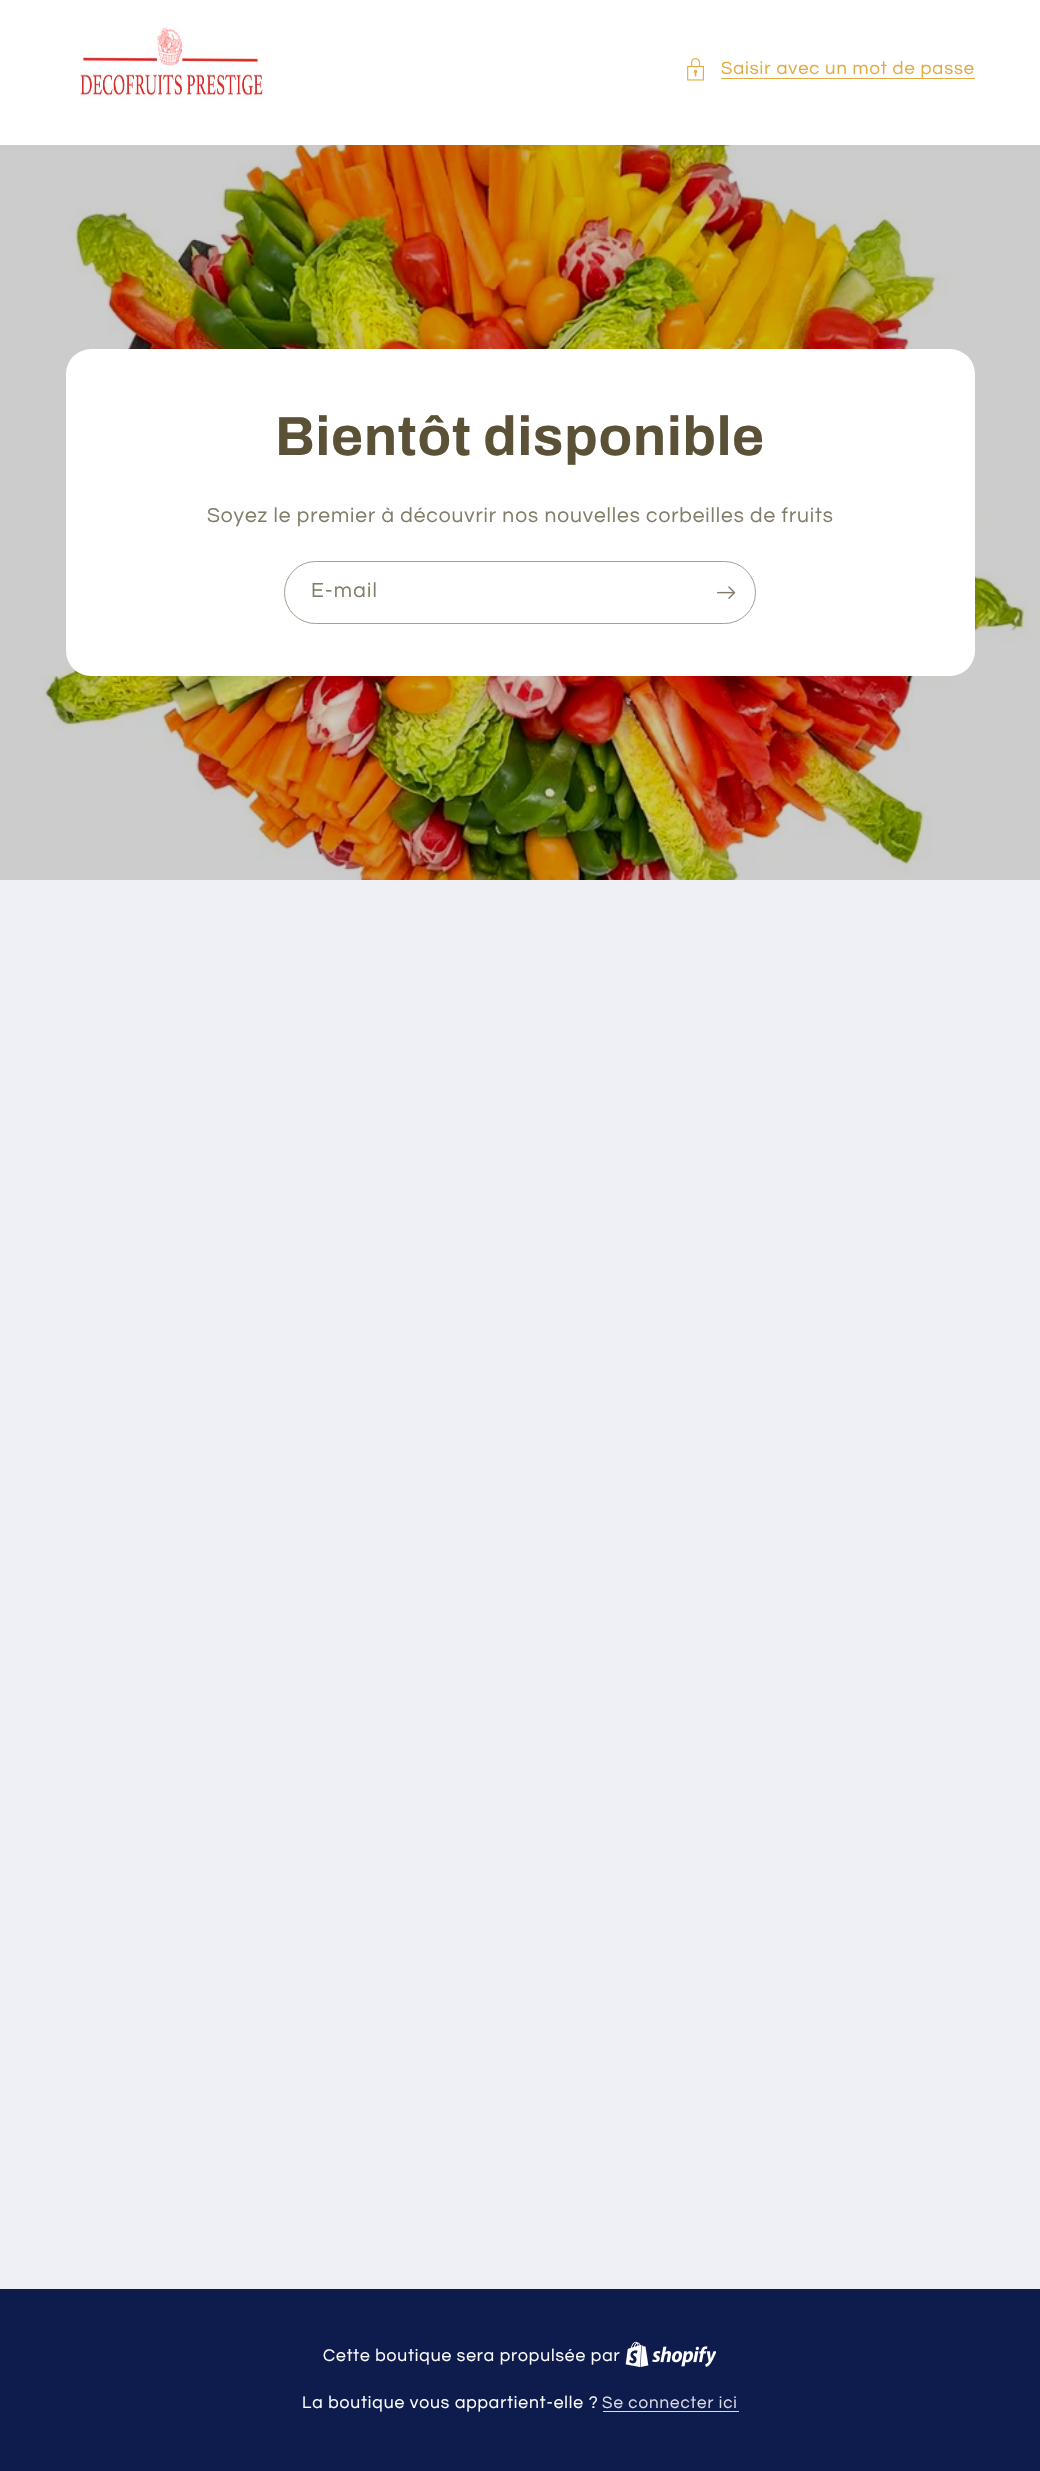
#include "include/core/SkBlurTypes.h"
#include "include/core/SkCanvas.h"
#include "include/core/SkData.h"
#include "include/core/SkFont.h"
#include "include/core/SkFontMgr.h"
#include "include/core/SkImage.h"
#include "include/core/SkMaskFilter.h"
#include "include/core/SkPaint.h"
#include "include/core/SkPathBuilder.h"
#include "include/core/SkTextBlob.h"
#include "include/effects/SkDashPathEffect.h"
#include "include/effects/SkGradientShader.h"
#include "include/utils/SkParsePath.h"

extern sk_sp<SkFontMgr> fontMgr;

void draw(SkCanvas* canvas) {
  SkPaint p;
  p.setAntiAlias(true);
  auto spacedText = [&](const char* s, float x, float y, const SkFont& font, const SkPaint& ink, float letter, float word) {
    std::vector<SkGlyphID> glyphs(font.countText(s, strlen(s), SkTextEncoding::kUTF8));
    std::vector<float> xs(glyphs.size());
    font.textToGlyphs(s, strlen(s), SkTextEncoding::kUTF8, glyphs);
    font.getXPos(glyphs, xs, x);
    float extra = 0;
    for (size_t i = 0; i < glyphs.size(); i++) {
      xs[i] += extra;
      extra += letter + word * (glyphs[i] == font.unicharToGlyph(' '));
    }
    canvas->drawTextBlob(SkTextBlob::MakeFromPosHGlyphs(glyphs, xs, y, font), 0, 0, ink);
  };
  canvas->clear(SkColorSetRGB(239, 240, 245));
  p.setColor(SK_ColorWHITE);
  canvas->drawRect(SkRect::MakeLTRB(0, 0, 1040, 145), p);
  canvas->drawImageRect(SkImages::DeferredFromEncodedData(SkData::MakeFromFileName("images/1.png")), SkRect::MakeLTRB(80, 26, 264, 99), SkSamplingOptions());
  canvas->drawImageRect(SkImages::DeferredFromEncodedData(SkData::MakeFromFileName("images/2.png")), SkRect::MakeLTRB(687, 58, 704, 81), SkSamplingOptions());
  p.setColor(SkColorSetRGB(228, 169, 65));
  canvas->drawRect(SkRect::MakeLTRB(721, 78, 975, 79), p);
  canvas->drawImageRect(SkImages::DeferredFromEncodedData(SkData::MakeFromFileName("images/3.png")), SkRect::MakeLTRB(0, 145, 1040, 880), SkSamplingOptions());
  p.setColor(SK_ColorWHITE);
  canvas->drawRoundRect(SkRect::MakeLTRB(66, 349, 975, 676), 25, 25, p);
  p.setStyle(SkPaint::kStroke_Style);
  p.setStrokeWidth(1);
  p.setColor(SkColorSetRGB(164, 159, 144));
  canvas->drawRoundRect(SkRect::MakeLTRB(284.5f, 561.5f, 755.5f, 623.5f), 31, 31, p);
  canvas->drawImageRect(SkImages::DeferredFromEncodedData(SkData::MakeFromFileName("images/4.png")), SkRect::MakeLTRB(717, 586, 736, 599), SkSamplingOptions());
  p.setStyle(SkPaint::kFill_Style);
  p.setColor(SkColorSetRGB(14, 27, 77));
  canvas->drawRect(SkRect::MakeLTRB(0, 2289, 1040, 2471), p);
  canvas->drawImageRect(SkImages::DeferredFromEncodedData(SkData::MakeFromFileName("images/5.png")), SkRect::MakeLTRB(625, 2341, 716, 2367), SkSamplingOptions());
  p.setColor(SkColorSetRGB(219, 221, 228));
  canvas->drawRect(SkRect::MakeLTRB(603, 2411, 739, 2412), p);
  SkFont font1(fontMgr->matchFamilyStyle("Questrial", SkFontStyle::Normal()), 18.4f);
  font1.setSubpixel(true);
  p.setColor(SkColorSetRGB(228, 169, 65));
  spacedText("Saisir avec un mot de passe", 721, 74, font1, p, 0.92f, 0);
  SkFont font2(fontMgr->matchFamilyStyle("Archivo", SkFontStyle::Bold()), 55);
  font2.setSubpixel(true);
  p.setColor(SkColorSetRGB(90, 81, 54));
  spacedText("Bientôt disponible", 275, 455, font2, p, 0.8f, 0);
  SkFont font3(fontMgr->matchFamilyStyle("Questrial", SkFontStyle::Normal()), 21);
  font3.setSubpixel(true);
  p.setColor(SkColorSetRGB(131, 125, 104));
  spacedText("Soyez le premier à découvrir nos nouvelles corbeilles de fruits", 207, 522, font3, p, 0.92f, 0);
  spacedText("E-mail", 311, 597, font3, p, 1.25f, 0);
  SkFont font4(fontMgr->matchFamilyStyle("Questrial", SkFontStyle::Normal()), 17.5f);
  font4.setSubpixel(true);
  p.setColor(SK_ColorWHITE);
  spacedText("Cette boutique sera propulsée par", 323, 2361, font4, p, 0.92f, 0);
  spacedText("La boutique vous appartient-elle ?", 302, 2408, font4, p, 0.92f, 0);
  SkFont font5(fontMgr->matchFamilyStyle("Questrial", SkFontStyle::Normal()), 17);
  font5.setSubpixel(true);
  p.setColor(SkColorSetRGB(219, 221, 228));
  spacedText("Se connecter ici", 602, 2408, font5, p, 0.92f, 0);
}
